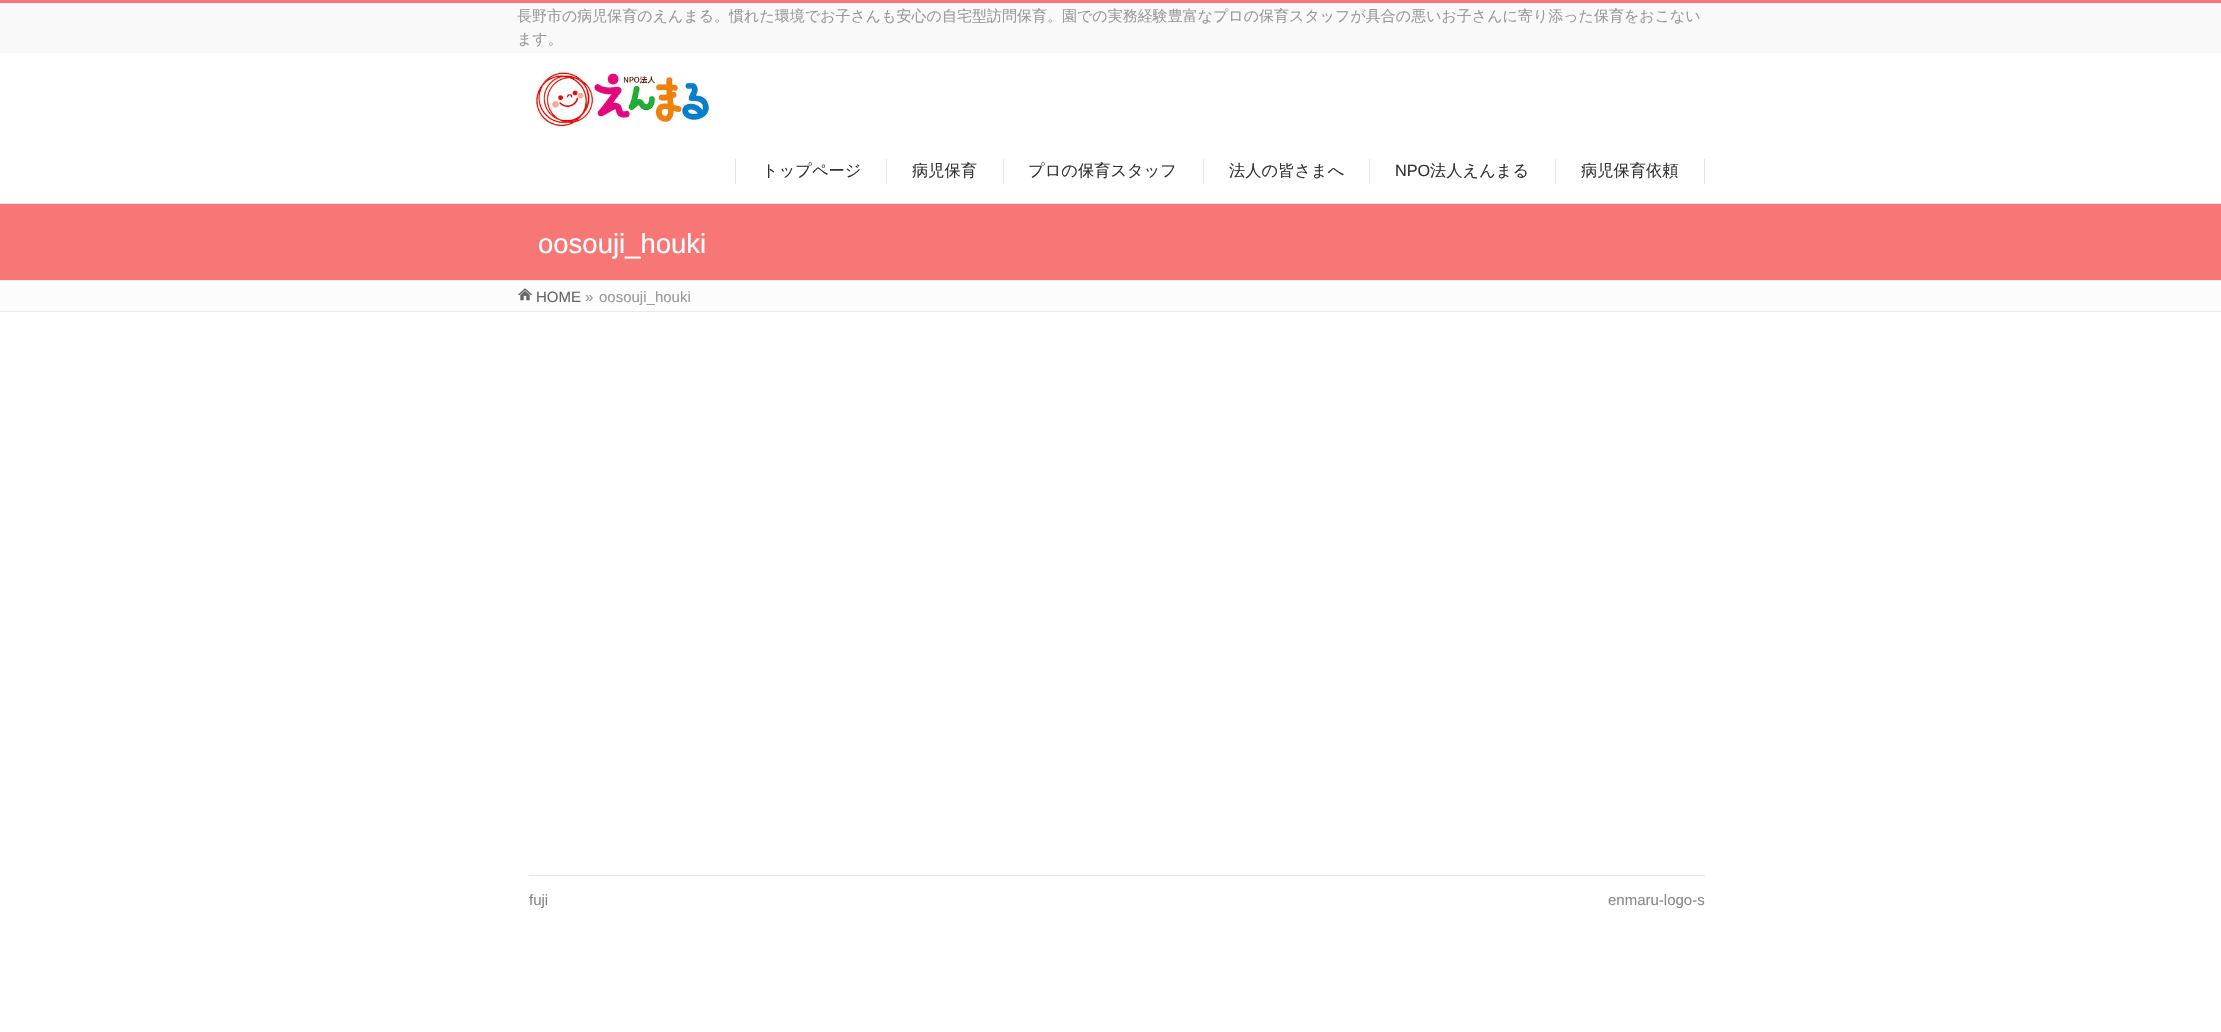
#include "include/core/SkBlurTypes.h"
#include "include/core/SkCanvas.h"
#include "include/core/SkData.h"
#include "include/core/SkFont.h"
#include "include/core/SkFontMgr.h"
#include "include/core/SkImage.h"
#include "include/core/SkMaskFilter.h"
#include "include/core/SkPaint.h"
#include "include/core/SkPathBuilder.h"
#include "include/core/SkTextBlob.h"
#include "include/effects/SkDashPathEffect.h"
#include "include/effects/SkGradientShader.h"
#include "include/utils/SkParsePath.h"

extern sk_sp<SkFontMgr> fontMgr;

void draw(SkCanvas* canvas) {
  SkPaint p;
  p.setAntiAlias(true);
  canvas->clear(SK_ColorWHITE);
  p.setColor(SkColorSetRGB(249, 249, 249));
  canvas->drawRect(SkRect::MakeLTRB(0, 3, 2221, 53), p);
  p.setColor(SkColorSetRGB(247, 119, 119));
  canvas->drawRect(SkRect::MakeLTRB(0, 0, 2221, 3), p);
  canvas->drawImageRect(SkImages::DeferredFromEncodedData(SkData::MakeFromFileName("images/1.png")), SkRect::MakeLTRB(532, 71, 713, 128), SkSamplingOptions());
  p.setColor(SkColorSetRGB(229, 229, 229));
  canvas->drawRect(SkRect::MakeLTRB(886, 159, 887, 184), p);
  canvas->drawRect(SkRect::MakeLTRB(735, 159, 736, 184), p);
  canvas->drawRect(SkRect::MakeLTRB(1003, 159, 1004, 184), p);
  canvas->drawRect(SkRect::MakeLTRB(1203, 159, 1204, 184), p);
  canvas->drawRect(SkRect::MakeLTRB(1369, 159, 1370, 184), p);
  canvas->drawRect(SkRect::MakeLTRB(1555, 159, 1556, 184), p);
  canvas->drawRect(SkRect::MakeLTRB(1704, 159, 1705, 184), p);
  p.setColor(SkColorSetRGB(247, 119, 119));
  canvas->drawRect(SkRect::MakeLTRB(0, 204, 2221, 280), p);
  p.setColor(SkColorSetRGB(233, 233, 233));
  canvas->drawRect(SkRect::MakeLTRB(0, 203, 2221, 204), p);
  canvas->drawRect(SkRect::MakeLTRB(0, 280, 2221, 281), p);
  p.setColor(SkColorSetRGB(252, 252, 252));
  canvas->drawRect(SkRect::MakeLTRB(0, 281, 2221, 311), p);
  canvas->drawImageRect(SkImages::DeferredFromEncodedData(SkData::MakeFromFileName("images/2.png")), SkRect::MakeLTRB(518, 288, 533, 301), SkSamplingOptions());
  p.setColor(SkColorSetRGB(233, 233, 233));
  canvas->drawRect(SkRect::MakeLTRB(0, 311, 2221, 312), p);
  p.setColor(SkColorSetRGB(229, 229, 229));
  canvas->drawRect(SkRect::MakeLTRB(529, 875, 1705, 876), p);
  SkFont font1(fontMgr->matchFamilyStyle("WenQuanYi Zen Hei", SkFontStyle(500, SkFontStyle::kNormal_Width, SkFontStyle::kUpright_Slant)), 15);
  font1.setSubpixel(true);
  p.setColor(SkColorSetRGB(153, 153, 153));
  canvas->drawString("長野市の病児保育のえんまる。慣れた環境でお子さんも安心の自宅型訪問保育。園での実務経験豊富なプロの保育スタッフが具合の悪いお子さんに寄り添った保育をおこない", 517, 21, font1, p);
  canvas->drawString("ます。", 517, 44, font1, p);
  SkFont font2(fontMgr->matchFamilyStyle("WenQuanYi Zen Hei", SkFontStyle(500, SkFontStyle::kNormal_Width, SkFontStyle::kUpright_Slant)), 16.25f);
  font2.setSubpixel(true);
  p.setColor(SkColorSetRGB(51, 51, 51));
  canvas->drawString("トップページ", 762, 176, font2, p);
  canvas->drawString("病児保育", 912, 176, font2, p);
  canvas->drawString("プロの保育スタッフ", 1028, 176, font2, p);
  canvas->drawString("法人の皆さまへ", 1229, 176, font2, p);
  SkFont font3(fontMgr->matchFamilyStyle("Liberation Sans", SkFontStyle::Normal()), 16.25f);
  font3.setSubpixel(true);
  canvas->drawString("NPO", 1395, 176, font3, p);
  canvas->drawString("法人えんまる", 1430, 176, font2, p);
  canvas->drawString("病児保育依頼", 1581, 176, font2, p);
  SkFont font4(fontMgr->matchFamilyStyle("Liberation Sans", SkFontStyle::Normal()), 27.5f);
  font4.setSubpixel(true);
  p.setColor(SK_ColorWHITE);
  canvas->drawString("oosouji_houki", 538, 253, font4, p);
  SkFont font5(fontMgr->matchFamilyStyle("Liberation Sans", SkFontStyle::Normal()), 15);
  font5.setSubpixel(true);
  p.setColor(SkColorSetRGB(102, 102, 102));
  canvas->drawString("HOME", 536, 302, font5, p);
  p.setColor(SkColorSetRGB(153, 153, 153));
  canvas->drawString("»", 585, 302, font5, p);
  canvas->drawString("oosouji_houki", 599, 302, font5, p);
  p.setColor(SkColorSetRGB(136, 136, 136));
  canvas->drawString("fuji", 529, 905, font5, p);
  canvas->drawString("enmaru-logo-s", 1608, 905, font5, p);
}
